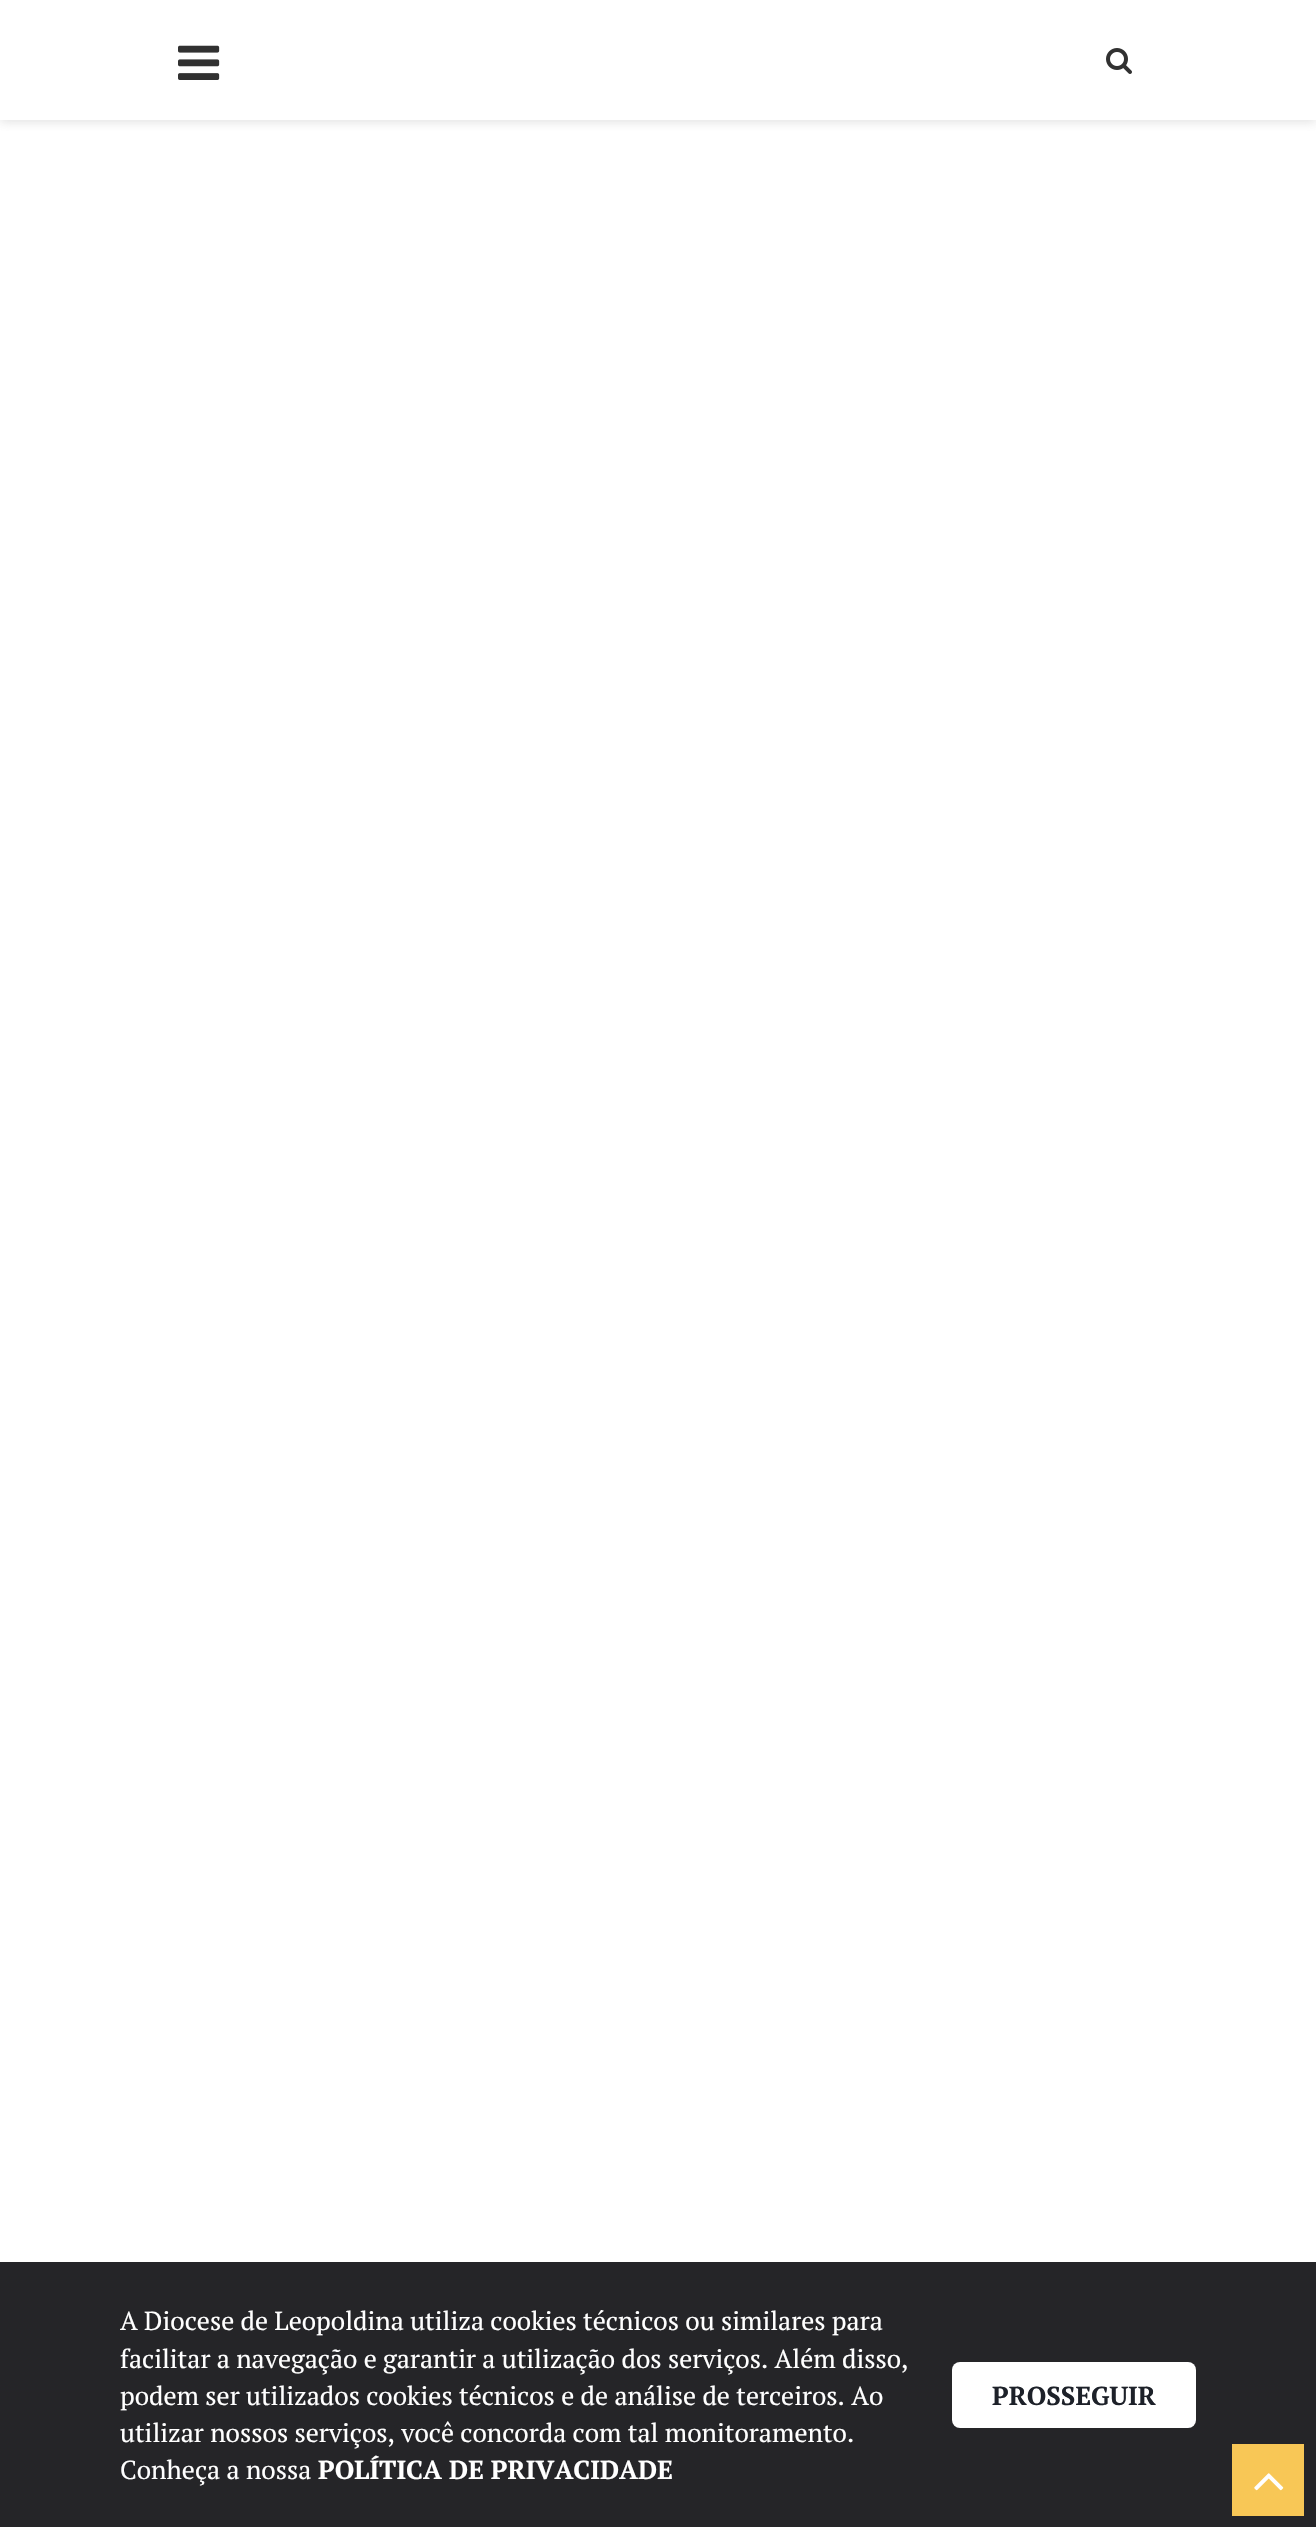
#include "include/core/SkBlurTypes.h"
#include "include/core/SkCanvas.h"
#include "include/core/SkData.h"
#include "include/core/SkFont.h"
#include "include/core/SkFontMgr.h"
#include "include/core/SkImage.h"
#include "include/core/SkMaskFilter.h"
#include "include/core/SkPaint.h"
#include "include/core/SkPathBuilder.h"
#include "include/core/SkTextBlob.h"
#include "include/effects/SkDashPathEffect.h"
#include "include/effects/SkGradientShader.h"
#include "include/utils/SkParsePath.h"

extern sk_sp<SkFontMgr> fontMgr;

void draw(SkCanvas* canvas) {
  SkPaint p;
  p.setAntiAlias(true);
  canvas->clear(SK_ColorWHITE);
  canvas->save();
  canvas->clipRect(SkRect::MakeLTRB(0, 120, 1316, 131));
  p.setColor(SkColorSetARGB(117, 190, 190, 190));
  p.setMaskFilter(SkMaskFilter::MakeBlur(kNormal_SkBlurStyle, 5));
  canvas->drawRect(SkRect::MakeLTRB(0, 2, 1316, 122), p);
  p.setMaskFilter(nullptr);
  canvas->restore();
  canvas->drawImageRect(SkImages::DeferredFromEncodedData(SkData::MakeFromFileName("images/1.png")), SkRect::MakeLTRB(178, 45, 220, 80), SkSamplingOptions());
  canvas->drawImageRect(SkImages::DeferredFromEncodedData(SkData::MakeFromFileName("images/2.png")), SkRect::MakeLTRB(1106, 48, 1132, 74), SkSamplingOptions());
  p.setColor(SkColorSetRGB(37, 37, 40));
  canvas->drawRect(SkRect::MakeLTRB(0, 2262, 1316, 2527), p);
  p.setColor(SK_ColorWHITE);
  canvas->drawRoundRect(SkRect::MakeLTRB(952, 2362, 1196, 2428), 8, 8, p);
  p.setColor(SkColorSetRGB(248, 199, 86));
  canvas->drawRect(SkRect::MakeLTRB(1232, 2444, 1304, 2516), p);
  canvas->drawImageRect(SkImages::DeferredFromEncodedData(SkData::MakeFromFileName("images/3.png")), SkRect::MakeLTRB(1254, 2473, 1284, 2491), SkSamplingOptions());
  SkFont font1(fontMgr->matchFamilyStyle("PT Serif", SkFontStyle::Normal()), 26);
  font1.setSubpixel(true);
  p.setColor(SK_ColorWHITE);
  canvas->drawString("A Diocese de Leopoldina utiliza cookies técnicos ou similares para", 120, 2330, font1, p);
  canvas->drawString("facilitar a navegação e garantir a utilização dos serviços. Além disso,", 120, 2368, font1, p);
  canvas->drawString("podem ser utilizados cookies técnicos e de análise de terceiros. Ao", 120, 2405, font1, p);
  canvas->drawString("utilizar nossos serviços, você concorda com tal monitoramento.", 120, 2442, font1, p);
  canvas->drawString("Conheça a nossa", 120, 2479, font1, p);
  SkFont font2(fontMgr->matchFamilyStyle("PT Serif", SkFontStyle::Bold()), 26);
  font2.setSubpixel(true);
  canvas->drawString("POLÍTICA DE PRIVACIDADE", 318, 2479, font2, p);
  p.setColor(SkColorSetRGB(29, 33, 41));
  canvas->drawString("PROSSEGUIR", 992, 2405, font2, p);
}
